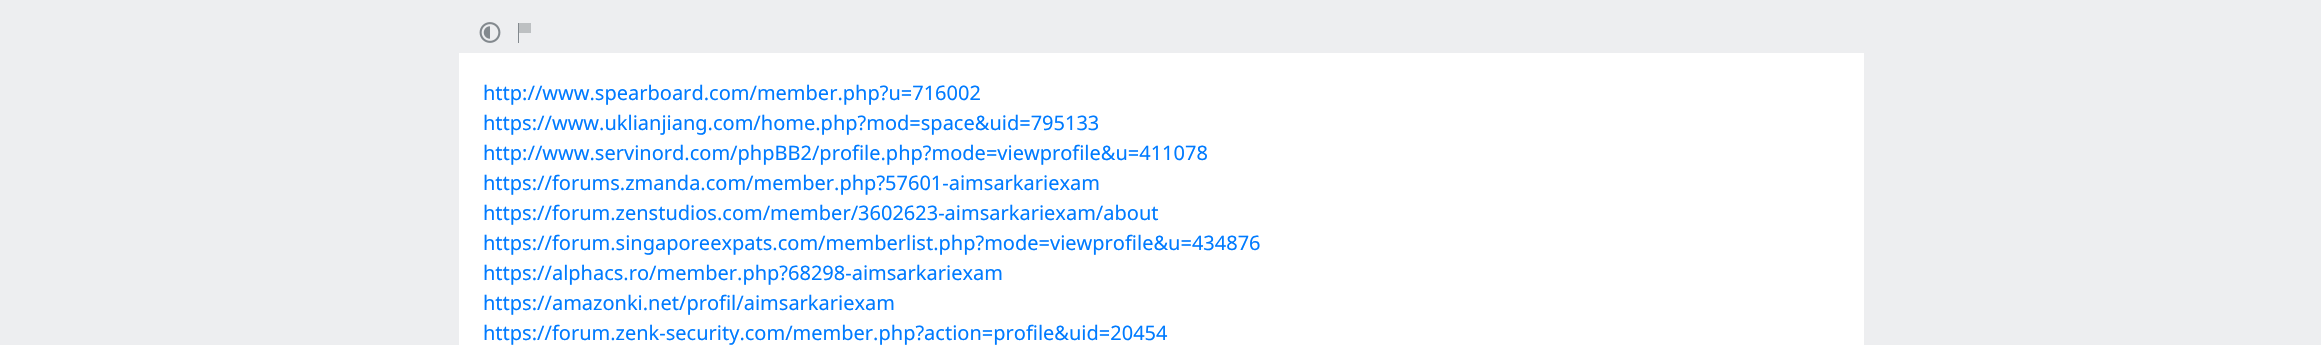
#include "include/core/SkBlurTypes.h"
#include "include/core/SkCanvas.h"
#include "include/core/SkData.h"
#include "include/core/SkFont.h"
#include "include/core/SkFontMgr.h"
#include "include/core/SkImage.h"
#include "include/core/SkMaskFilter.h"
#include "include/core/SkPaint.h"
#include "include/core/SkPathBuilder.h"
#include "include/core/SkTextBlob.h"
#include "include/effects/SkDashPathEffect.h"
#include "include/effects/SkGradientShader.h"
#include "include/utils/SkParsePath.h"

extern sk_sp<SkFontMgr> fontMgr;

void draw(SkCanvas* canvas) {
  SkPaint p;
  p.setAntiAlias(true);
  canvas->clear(SkColorSetRGB(237, 238, 240));
  canvas->drawImageRect(SkImages::DeferredFromEncodedData(SkData::MakeFromFileName("images/1.png")), SkRect::MakeLTRB(479, 22, 501, 43), SkSamplingOptions());
  p.setColor(SkColorSetRGB(131, 137, 142));
  canvas->drawRect(SkRect::MakeLTRB(518, 23, 519, 43), p);
  p.setColor(SkColorSetRGB(189, 192, 194));
  canvas->drawRect(SkRect::MakeLTRB(519, 23, 531, 33), p);
  p.setColor(SK_ColorWHITE);
  canvas->drawRect(SkRect::MakeLTRB(459, 53, 1864, 345), p);
  SkFont font1(fontMgr->matchFamilyStyle("Noto Sans", SkFontStyle::Normal()), 20);
  font1.setSubpixel(true);
  p.setColor(SkColorSetRGB(0, 123, 255));
  canvas->drawString("http://www.spearboard.com/member.php?u=716002", 483, 100, font1, p);
  canvas->drawString("https://www.uklianjiang.com/home.php?mod=space&uid=795133", 483, 130, font1, p);
  canvas->drawString("http://www.servinord.com/phpBB2/profile.php?mode=viewprofile&u=411078", 483, 160, font1, p);
  canvas->drawString("https://forums.zmanda.com/member.php?57601-aimsarkariexam", 483, 190, font1, p);
  canvas->drawString("https://forum.zenstudios.com/member/3602623-aimsarkariexam/about", 483, 220, font1, p);
  canvas->drawString("https://forum.singaporeexpats.com/memberlist.php?mode=viewprofile&u=434876", 483, 250, font1, p);
  canvas->drawString("https://alphacs.ro/member.php?68298-aimsarkariexam", 483, 280, font1, p);
  canvas->drawString("https://amazonki.net/profil/aimsarkariexam", 483, 310, font1, p);
  canvas->drawString("https://forum.zenk-security.com/member.php?action=profile&uid=20454", 483, 340, font1, p);
}
